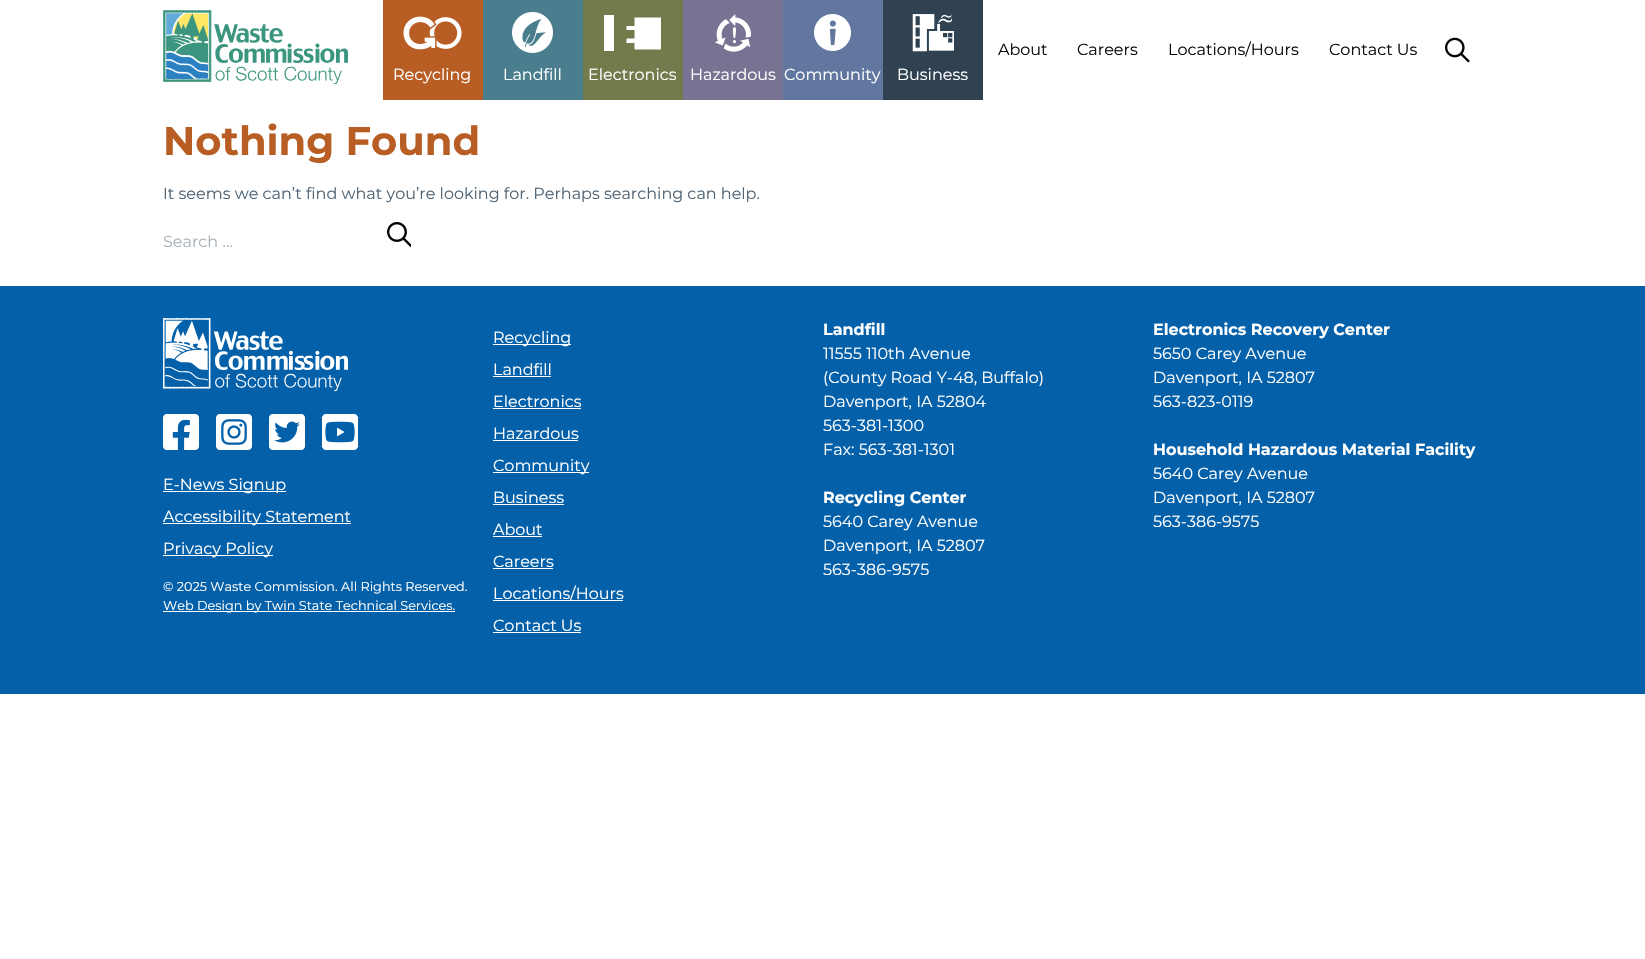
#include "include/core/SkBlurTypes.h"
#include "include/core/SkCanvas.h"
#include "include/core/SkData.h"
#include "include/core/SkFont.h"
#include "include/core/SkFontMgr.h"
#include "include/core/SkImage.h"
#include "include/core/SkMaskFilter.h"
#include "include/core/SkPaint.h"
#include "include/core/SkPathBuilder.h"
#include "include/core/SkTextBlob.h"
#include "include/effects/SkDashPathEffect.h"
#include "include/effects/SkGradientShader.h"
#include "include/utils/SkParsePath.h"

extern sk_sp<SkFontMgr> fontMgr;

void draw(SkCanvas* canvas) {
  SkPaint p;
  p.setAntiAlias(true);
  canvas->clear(SK_ColorWHITE);
  canvas->drawImageRect(SkImages::DeferredFromEncodedData(SkData::MakeFromFileName("images/1.png")), SkRect::MakeLTRB(163, 10, 348, 84), SkSamplingOptions());
  canvas->drawImageRect(SkImages::DeferredFromEncodedData(SkData::MakeFromFileName("images/2.png")), SkRect::MakeLTRB(1445, 37, 1470, 63), SkSamplingOptions());
  p.setColor(SkColorSetRGB(184, 94, 37));
  canvas->drawRect(SkRect::MakeLTRB(383, 0, 483, 100), p);
  canvas->drawImageRect(SkImages::DeferredFromEncodedData(SkData::MakeFromFileName("images/3.png")), SkRect::MakeLTRB(403, 16, 462, 50), SkSamplingOptions());
  p.setColor(SkColorSetRGB(74, 126, 142));
  canvas->drawRect(SkRect::MakeLTRB(483, 0, 583, 100), p);
  canvas->drawImageRect(SkImages::DeferredFromEncodedData(SkData::MakeFromFileName("images/4.png")), SkRect::MakeLTRB(512, 12, 553, 53), SkSamplingOptions());
  p.setColor(SkColorSetRGB(115, 123, 76));
  canvas->drawRect(SkRect::MakeLTRB(583, 0, 683, 100), p);
  p.setColor(SK_ColorWHITE);
  canvas->drawRect(SkRect::MakeLTRB(604, 15, 614, 51), p);
  canvas->drawPath(SkPathBuilder().moveTo(634.5f, 17.5f).lineTo(634.5f, 26).lineTo(626.5f, 26).lineTo(626.5f, 30).lineTo(634.5f, 30).lineTo(634.5f, 38.5f).lineTo(626.5f, 38.5f).lineTo(626.5f, 43).lineTo(634.5f, 43).lineTo(634.5f, 49.5f).lineTo(661, 49.5f).lineTo(661, 17.5f).close().detach(), p);
  p.setColor(SkColorSetRGB(120, 115, 146));
  canvas->drawRect(SkRect::MakeLTRB(683, 0, 783, 100), p);
  canvas->drawImageRect(SkImages::DeferredFromEncodedData(SkData::MakeFromFileName("images/5.png")), SkRect::MakeLTRB(715, 14, 751, 52), SkSamplingOptions());
  p.setColor(SkColorSetRGB(98, 119, 160));
  canvas->drawRect(SkRect::MakeLTRB(783, 0, 883, 100), p);
  canvas->drawImageRect(SkImages::DeferredFromEncodedData(SkData::MakeFromFileName("images/6.png")), SkRect::MakeLTRB(814, 14, 851, 51), SkSamplingOptions());
  p.setColor(SkColorSetRGB(48, 66, 81));
  canvas->drawRect(SkRect::MakeLTRB(883, 0, 983, 100), p);
  canvas->drawImageRect(SkImages::DeferredFromEncodedData(SkData::MakeFromFileName("images/7.png")), SkRect::MakeLTRB(912, 14, 954, 52), SkSamplingOptions());
  canvas->drawImageRect(SkImages::DeferredFromEncodedData(SkData::MakeFromFileName("images/8.png")), SkRect::MakeLTRB(387, 222, 411, 247), SkSamplingOptions());
  p.setColor(SkColorSetRGB(3, 96, 169));
  canvas->drawRect(SkRect::MakeLTRB(0, 286, 1645, 694), p);
  canvas->drawImageRect(SkImages::DeferredFromEncodedData(SkData::MakeFromFileName("images/9.png")), SkRect::MakeLTRB(163, 318, 348, 391), SkSamplingOptions());
  canvas->drawImageRect(SkImages::DeferredFromEncodedData(SkData::MakeFromFileName("images/10.png")), SkRect::MakeLTRB(163, 414, 199, 450), SkSamplingOptions());
  canvas->drawImageRect(SkImages::DeferredFromEncodedData(SkData::MakeFromFileName("images/11.png")), SkRect::MakeLTRB(216, 414, 252, 450), SkSamplingOptions());
  canvas->drawImageRect(SkImages::DeferredFromEncodedData(SkData::MakeFromFileName("images/12.png")), SkRect::MakeLTRB(269, 414, 305, 450), SkSamplingOptions());
  canvas->drawImageRect(SkImages::DeferredFromEncodedData(SkData::MakeFromFileName("images/13.png")), SkRect::MakeLTRB(322, 414, 358, 450), SkSamplingOptions());
  p.setColor(SK_ColorWHITE);
  canvas->drawRect(SkRect::MakeLTRB(163, 491, 286, 492), p);
  canvas->drawRect(SkRect::MakeLTRB(163, 523, 351, 524), p);
  canvas->drawRect(SkRect::MakeLTRB(163, 555, 273, 556), p);
  canvas->drawRect(SkRect::MakeLTRB(163, 611, 455, 612), p);
  canvas->drawRect(SkRect::MakeLTRB(493, 344, 571, 345), p);
  canvas->drawRect(SkRect::MakeLTRB(493, 376, 551, 377), p);
  canvas->drawRect(SkRect::MakeLTRB(493, 408, 581, 409), p);
  canvas->drawRect(SkRect::MakeLTRB(493, 440, 578, 441), p);
  canvas->drawRect(SkRect::MakeLTRB(493, 472, 589, 473), p);
  canvas->drawRect(SkRect::MakeLTRB(493, 504, 564, 505), p);
  canvas->drawRect(SkRect::MakeLTRB(493, 536, 542, 537), p);
  canvas->drawRect(SkRect::MakeLTRB(493, 568, 553, 569), p);
  canvas->drawRect(SkRect::MakeLTRB(493, 600, 623, 601), p);
  canvas->drawRect(SkRect::MakeLTRB(493, 632, 581, 633), p);
  SkFont font1(fontMgr->matchFamilyStyle("Montserrat", SkFontStyle::Normal()), 16);
  font1.setSubpixel(true);
  p.setColor(SkColorSetRGB(10, 10, 10));
  canvas->drawString("About", 998, 55, font1, p);
  canvas->drawString("Careers", 1077, 55, font1, p);
  canvas->drawString("Locations/Hours", 1168, 55, font1, p);
  canvas->drawString("Contact Us", 1329, 55, font1, p);
  p.setColor(SK_ColorWHITE);
  canvas->drawString("Recycling", 393, 80, font1, p);
  canvas->drawString("Landfill", 503, 80, font1, p);
  canvas->drawString("Electronics", 588, 80, font1, p);
  canvas->drawString("Hazardous", 690, 80, font1, p);
  canvas->drawString("Community", 784, 80, font1, p);
  canvas->drawString("Business", 897, 80, font1, p);
  SkFont font2(fontMgr->matchFamilyStyle("Montserrat", SkFontStyle::Bold()), 40);
  font2.setSubpixel(true);
  p.setColor(SkColorSetRGB(184, 94, 37));
  canvas->drawString("Nothing Found", 163, 155, font2, p);
  p.setColor(SkColorSetRGB(80, 100, 116));
  canvas->drawString("It seems we can’t find what you’re looking for. Perhaps searching can help.", 163, 199, font1, p);
  p.setColor(SkColorSetRGB(168, 178, 186));
  canvas->drawString("Search …", 163, 247, font1, p);
  p.setColor(SK_ColorWHITE);
  canvas->drawString("E-News Signup", 163, 490, font1, p);
  canvas->drawString("Accessibility Statement", 163, 522, font1, p);
  canvas->drawString("Privacy Policy", 163, 554, font1, p);
  SkFont font3(fontMgr->matchFamilyStyle("Montserrat", SkFontStyle::Normal()), 12.8f);
  font3.setSubpixel(true);
  canvas->drawString("© 2025 Waste Commission. All Rights Reserved.", 163, 591, font3, p);
  canvas->drawString("Web Design by Twin State Technical Services.", 163, 610, font3, p);
  canvas->drawString("Recycling", 493, 343, font1, p);
  canvas->drawString("Landfill", 493, 375, font1, p);
  canvas->drawString("Electronics", 493, 407, font1, p);
  canvas->drawString("Hazardous", 493, 439, font1, p);
  canvas->drawString("Community", 493, 471, font1, p);
  canvas->drawString("Business", 493, 503, font1, p);
  canvas->drawString("About", 493, 535, font1, p);
  canvas->drawString("Careers", 493, 567, font1, p);
  canvas->drawString("Locations/Hours", 493, 599, font1, p);
  canvas->drawString("Contact Us", 493, 631, font1, p);
  SkFont font4(fontMgr->matchFamilyStyle("Montserrat", SkFontStyle::Bold()), 16);
  font4.setSubpixel(true);
  canvas->drawString("Landfill", 823, 335, font4, p);
  canvas->drawString("11555 110th Avenue", 823, 359, font1, p);
  canvas->drawString("(County Road Y-48, Buffalo)", 823, 383, font1, p);
  canvas->drawString("Davenport, IA 52804", 823, 407, font1, p);
  canvas->drawString("563-381-1300", 823, 431, font1, p);
  canvas->drawString("Fax: 563-381-1301", 823, 455, font1, p);
  canvas->drawString("Recycling Center", 823, 503, font4, p);
  canvas->drawString("5640 Carey Avenue", 823, 527, font1, p);
  canvas->drawString("Davenport, IA 52807", 823, 551, font1, p);
  canvas->drawString("563-386-9575", 823, 575, font1, p);
  canvas->drawString("Electronics Recovery Center", 1153, 335, font4, p);
  canvas->drawString("5650 Carey Avenue", 1153, 359, font1, p);
  canvas->drawString("Davenport, IA 52807", 1153, 383, font1, p);
  canvas->drawString("563-823-0119", 1153, 407, font1, p);
  canvas->drawString("Household Hazardous Material Facility", 1153, 455, font4, p);
  canvas->drawString("5640 Carey Avenue", 1153, 479, font1, p);
  canvas->drawString("Davenport, IA 52807", 1153, 503, font1, p);
  canvas->drawString("563-386-9575", 1153, 527, font1, p);
}
